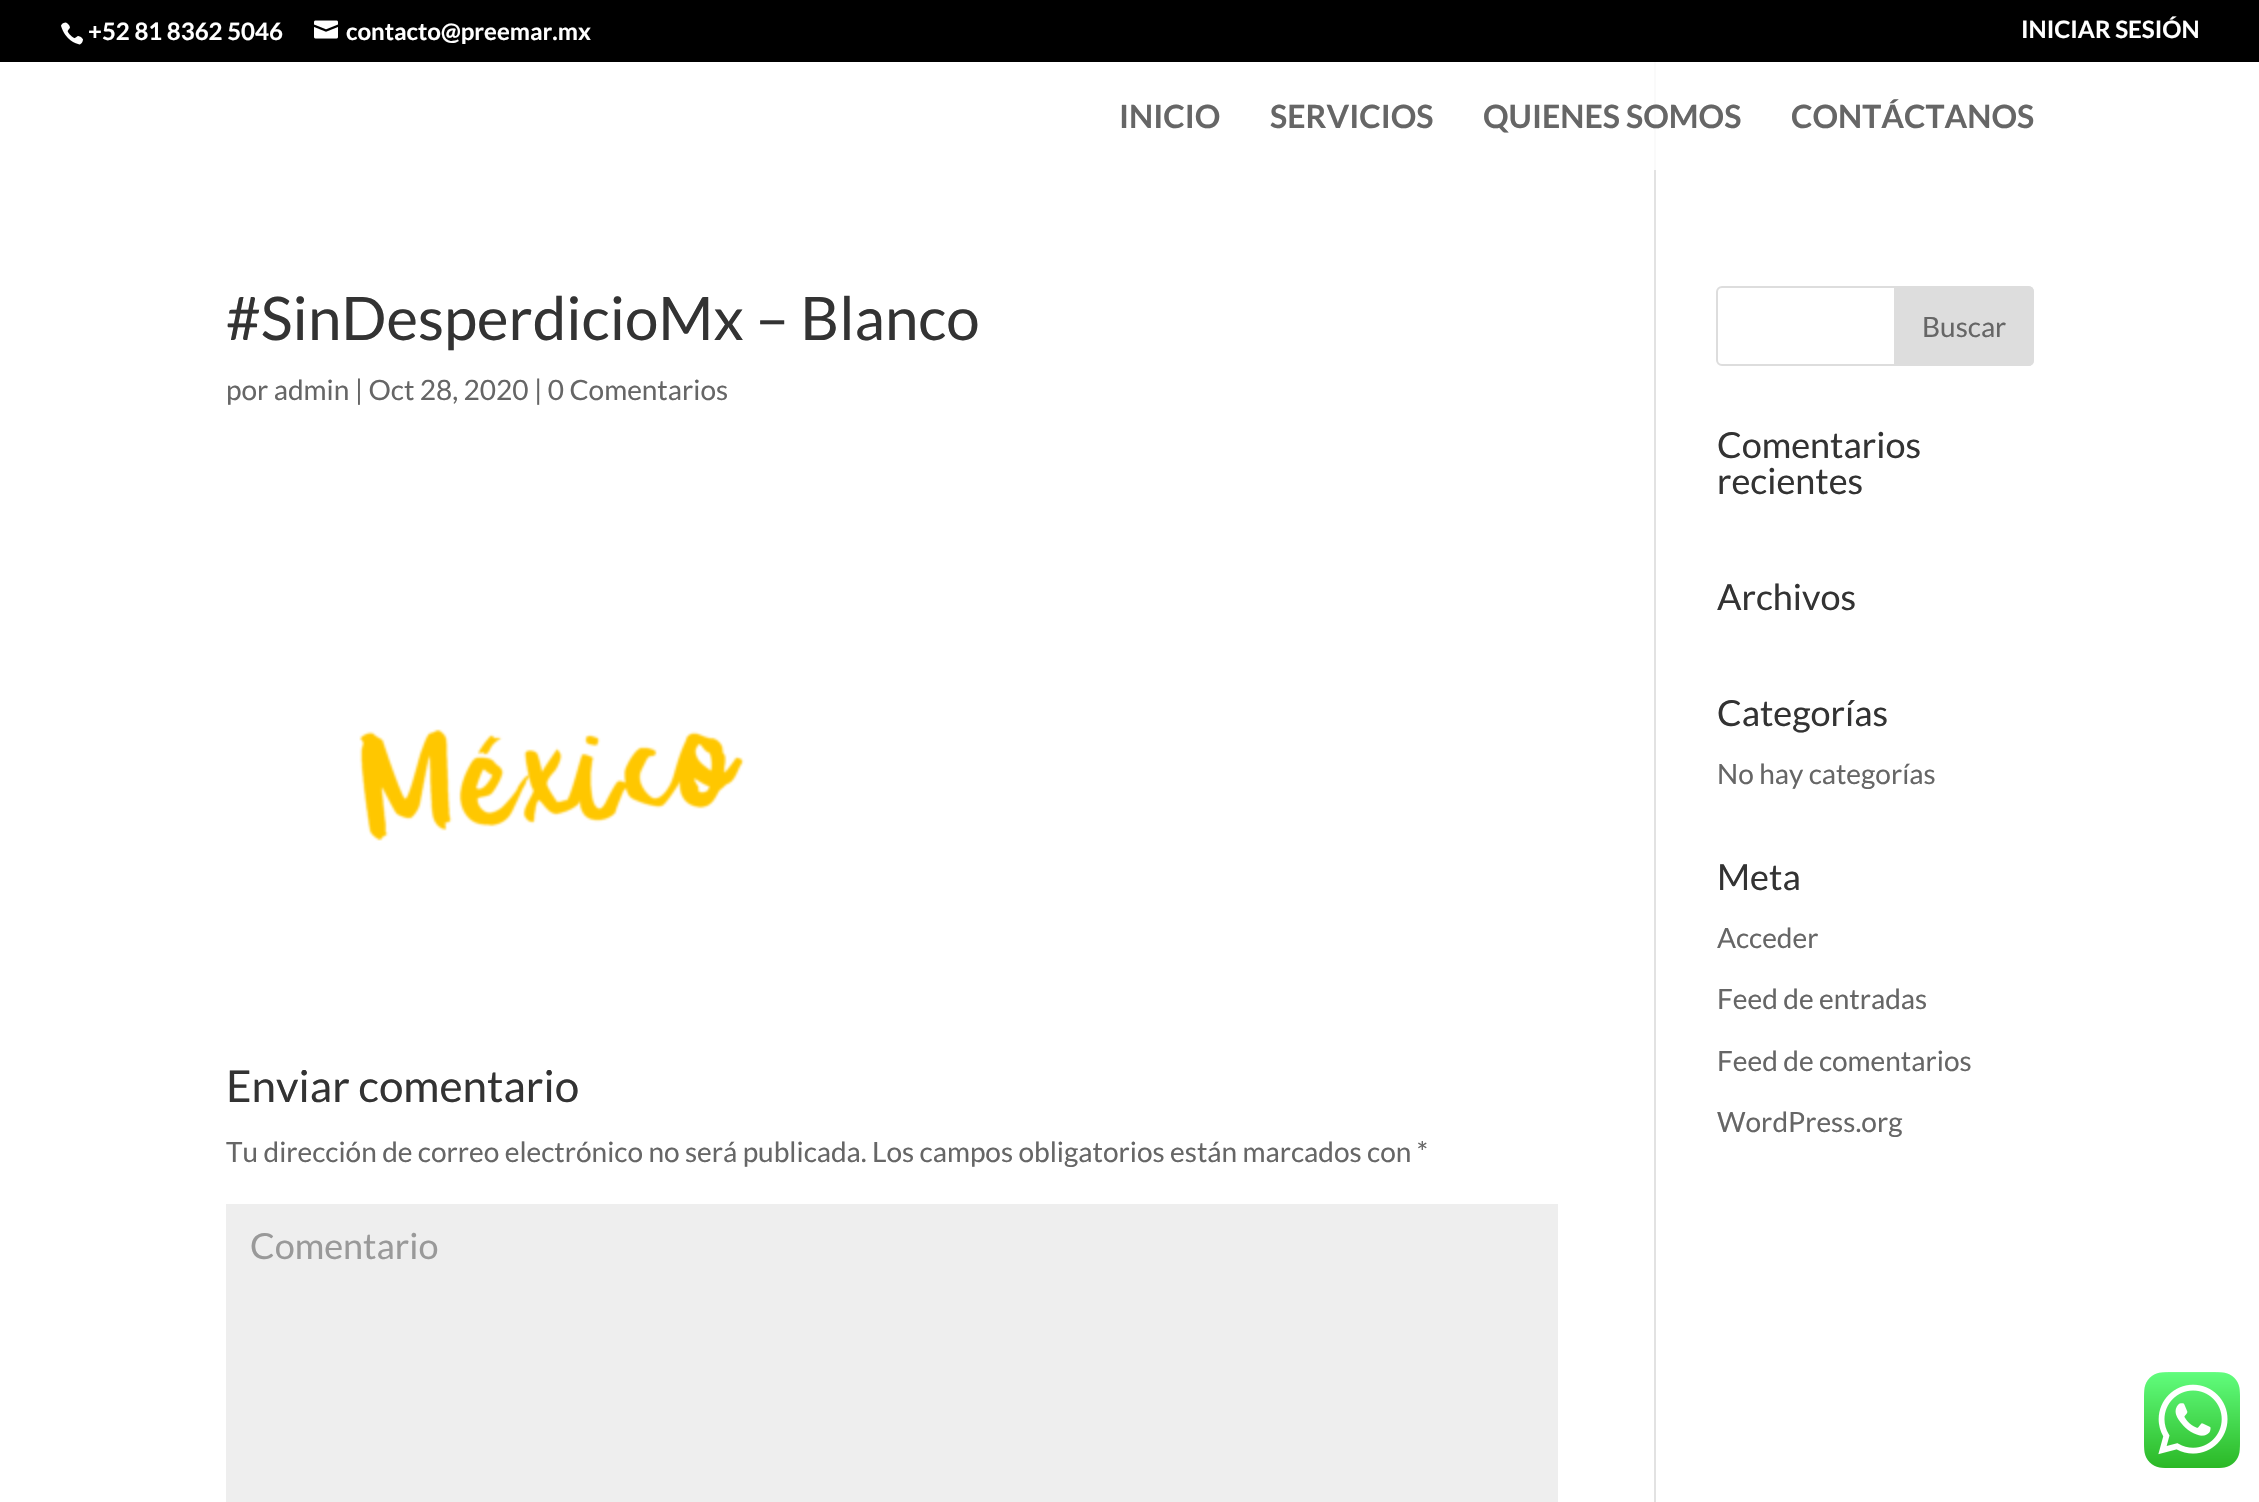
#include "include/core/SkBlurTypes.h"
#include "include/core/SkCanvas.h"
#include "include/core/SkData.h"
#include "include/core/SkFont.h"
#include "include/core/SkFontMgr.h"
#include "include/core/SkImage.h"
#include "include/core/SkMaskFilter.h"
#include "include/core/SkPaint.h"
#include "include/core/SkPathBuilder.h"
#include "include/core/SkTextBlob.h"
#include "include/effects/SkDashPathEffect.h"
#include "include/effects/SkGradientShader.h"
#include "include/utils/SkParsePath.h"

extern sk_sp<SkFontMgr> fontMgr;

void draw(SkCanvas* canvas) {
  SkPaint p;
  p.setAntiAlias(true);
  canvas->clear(SK_ColorWHITE);
  p.setColor(SK_ColorBLACK);
  canvas->drawRect(SkRect::MakeLTRB(0, 0, 2259, 62), p);
  canvas->drawImageRect(SkImages::DeferredFromEncodedData(SkData::MakeFromFileName("images/1.png")), SkRect::MakeLTRB(61, 22, 83, 45), SkSamplingOptions());
  canvas->drawImageRect(SkImages::DeferredFromEncodedData(SkData::MakeFromFileName("images/2.png")), SkRect::MakeLTRB(314, 20, 338, 39), SkSamplingOptions());
  p.setColor(SkColorSetRGB(226, 226, 226));
  canvas->drawRect(SkRect::MakeLTRB(1654, 170, 1656, 1502), p);
  p.setColor(SkColorSetRGB(250, 250, 250));
  canvas->drawRect(SkRect::MakeLTRB(1654, 62, 1656, 170), p);
  canvas->drawImageRect(SkImages::DeferredFromEncodedData(SkData::MakeFromFileName("images/3.png")), SkRect::MakeLTRB(359, 729, 745, 841), SkSamplingOptions());
  p.setColor(SkColorSetRGB(238, 238, 238));
  canvas->drawRect(SkRect::MakeLTRB(226, 1204, 1558, 1502), p);
  p.setStyle(SkPaint::kStroke_Style);
  p.setStrokeWidth(2);
  p.setColor(SkColorSetRGB(221, 221, 221));
  canvas->drawRoundRect(SkRect::MakeLTRB(1717, 287, 2033, 365), 5, 5, p);
  p.setStyle(SkPaint::kFill_Style);
  canvas->drawPath(SkPathBuilder().moveTo(1895, 287).lineTo(2028, 287).cubicTo(2031, 287, 2033, 289, 2033, 292).lineTo(2033, 360).cubicTo(2033, 363, 2031, 365, 2028, 365).lineTo(1895, 365).close().detach(), p);
  p.setStyle(SkPaint::kStroke_Style);
  canvas->drawPath(SkPathBuilder().moveTo(1895, 287).lineTo(2028, 287).cubicTo(2031, 287, 2033, 289, 2033, 292).lineTo(2033, 360).cubicTo(2033, 363, 2031, 365, 2028, 365).lineTo(1895, 365).close().detach(), p);
  canvas->drawImageRect(SkImages::DeferredFromEncodedData(SkData::MakeFromFileName("images/4.png")), SkRect::MakeLTRB(2144, 1372, 2240, 1468), SkSamplingOptions());
  SkFont font1(fontMgr->matchFamilyStyle("Lato", SkFontStyle::Bold()), 24);
  font1.setSubpixel(true);
  p.setStyle(SkPaint::kFill_Style);
  p.setColor(SK_ColorWHITE);
  canvas->drawString("+52 81 8362 5046", 88, 40, font1, p);
  canvas->drawString("contacto@preemar.mx", 346, 40, font1, p);
  canvas->drawString("INICIAR SESIÓN", 2021, 38, font1, p);
  SkFont font2(fontMgr->matchFamilyStyle("Lato", SkFontStyle::Bold()), 32);
  font2.setSubpixel(true);
  p.setColor(SkColorSetRGB(102, 102, 102));
  canvas->drawString("INICIO", 1119, 128, font2, p);
  canvas->drawString("SERVICIOS", 1270, 128, font2, p);
  canvas->drawString("QUIENES SOMOS", 1483, 128, font2, p);
  canvas->drawString("CONTÁCTANOS", 1791, 128, font2, p);
  SkFont font3(fontMgr->matchFamilyStyle("Lato", SkFontStyle::Normal()), 60);
  font3.setSubpixel(true);
  p.setColor(SkColorSetRGB(51, 51, 51));
  canvas->drawString("#SinDesperdicioMx – Blanco", 226, 340, font3, p);
  SkFont font4(fontMgr->matchFamilyStyle("Lato", SkFontStyle::Normal()), 28);
  font4.setSubpixel(true);
  p.setColor(SkColorSetRGB(102, 102, 102));
  canvas->drawString("por admin | Oct 28, 2020 | 0 Comentarios", 226, 400, font4, p);
  SkFont font5(fontMgr->matchFamilyStyle("Lato", SkFontStyle::Normal()), 44);
  font5.setSubpixel(true);
  p.setColor(SkColorSetRGB(51, 51, 51));
  canvas->drawString("Enviar comentario", 226, 1102, font5, p);
  p.setColor(SkColorSetRGB(102, 102, 102));
  canvas->drawString("Tu dirección de correo electrónico no será publicada. Los campos obligatorios están marcados con *", 226, 1162, font4, p);
  SkFont font6(fontMgr->matchFamilyStyle("Lato", SkFontStyle::Normal()), 36);
  font6.setSubpixel(true);
  p.setColor(SkColorSetRGB(153, 153, 153));
  canvas->drawString("Comentario", 250, 1259, font6, p);
  p.setColor(SkColorSetRGB(102, 102, 102));
  canvas->drawString("Buscar", 1922, 337, font4, p);
  p.setColor(SkColorSetRGB(51, 51, 51));
  canvas->drawString("Comentarios", 1717, 458, font6, p);
  canvas->drawString("recientes", 1717, 494, font6, p);
  canvas->drawString("Archivos", 1717, 610, font6, p);
  canvas->drawString("Categorías", 1717, 726, font6, p);
  p.setColor(SkColorSetRGB(102, 102, 102));
  canvas->drawString("No hay categorías", 1717, 784, font4, p);
  p.setColor(SkColorSetRGB(51, 51, 51));
  canvas->drawString("Meta", 1717, 890, font6, p);
  p.setColor(SkColorSetRGB(102, 102, 102));
  canvas->drawString("Acceder", 1717, 948, font4, p);
  canvas->drawString("Feed de entradas", 1717, 1009, font4, p);
  canvas->drawString("Feed de comentarios", 1717, 1071, font4, p);
  canvas->drawString("WordPress.org", 1717, 1132, font4, p);
}
